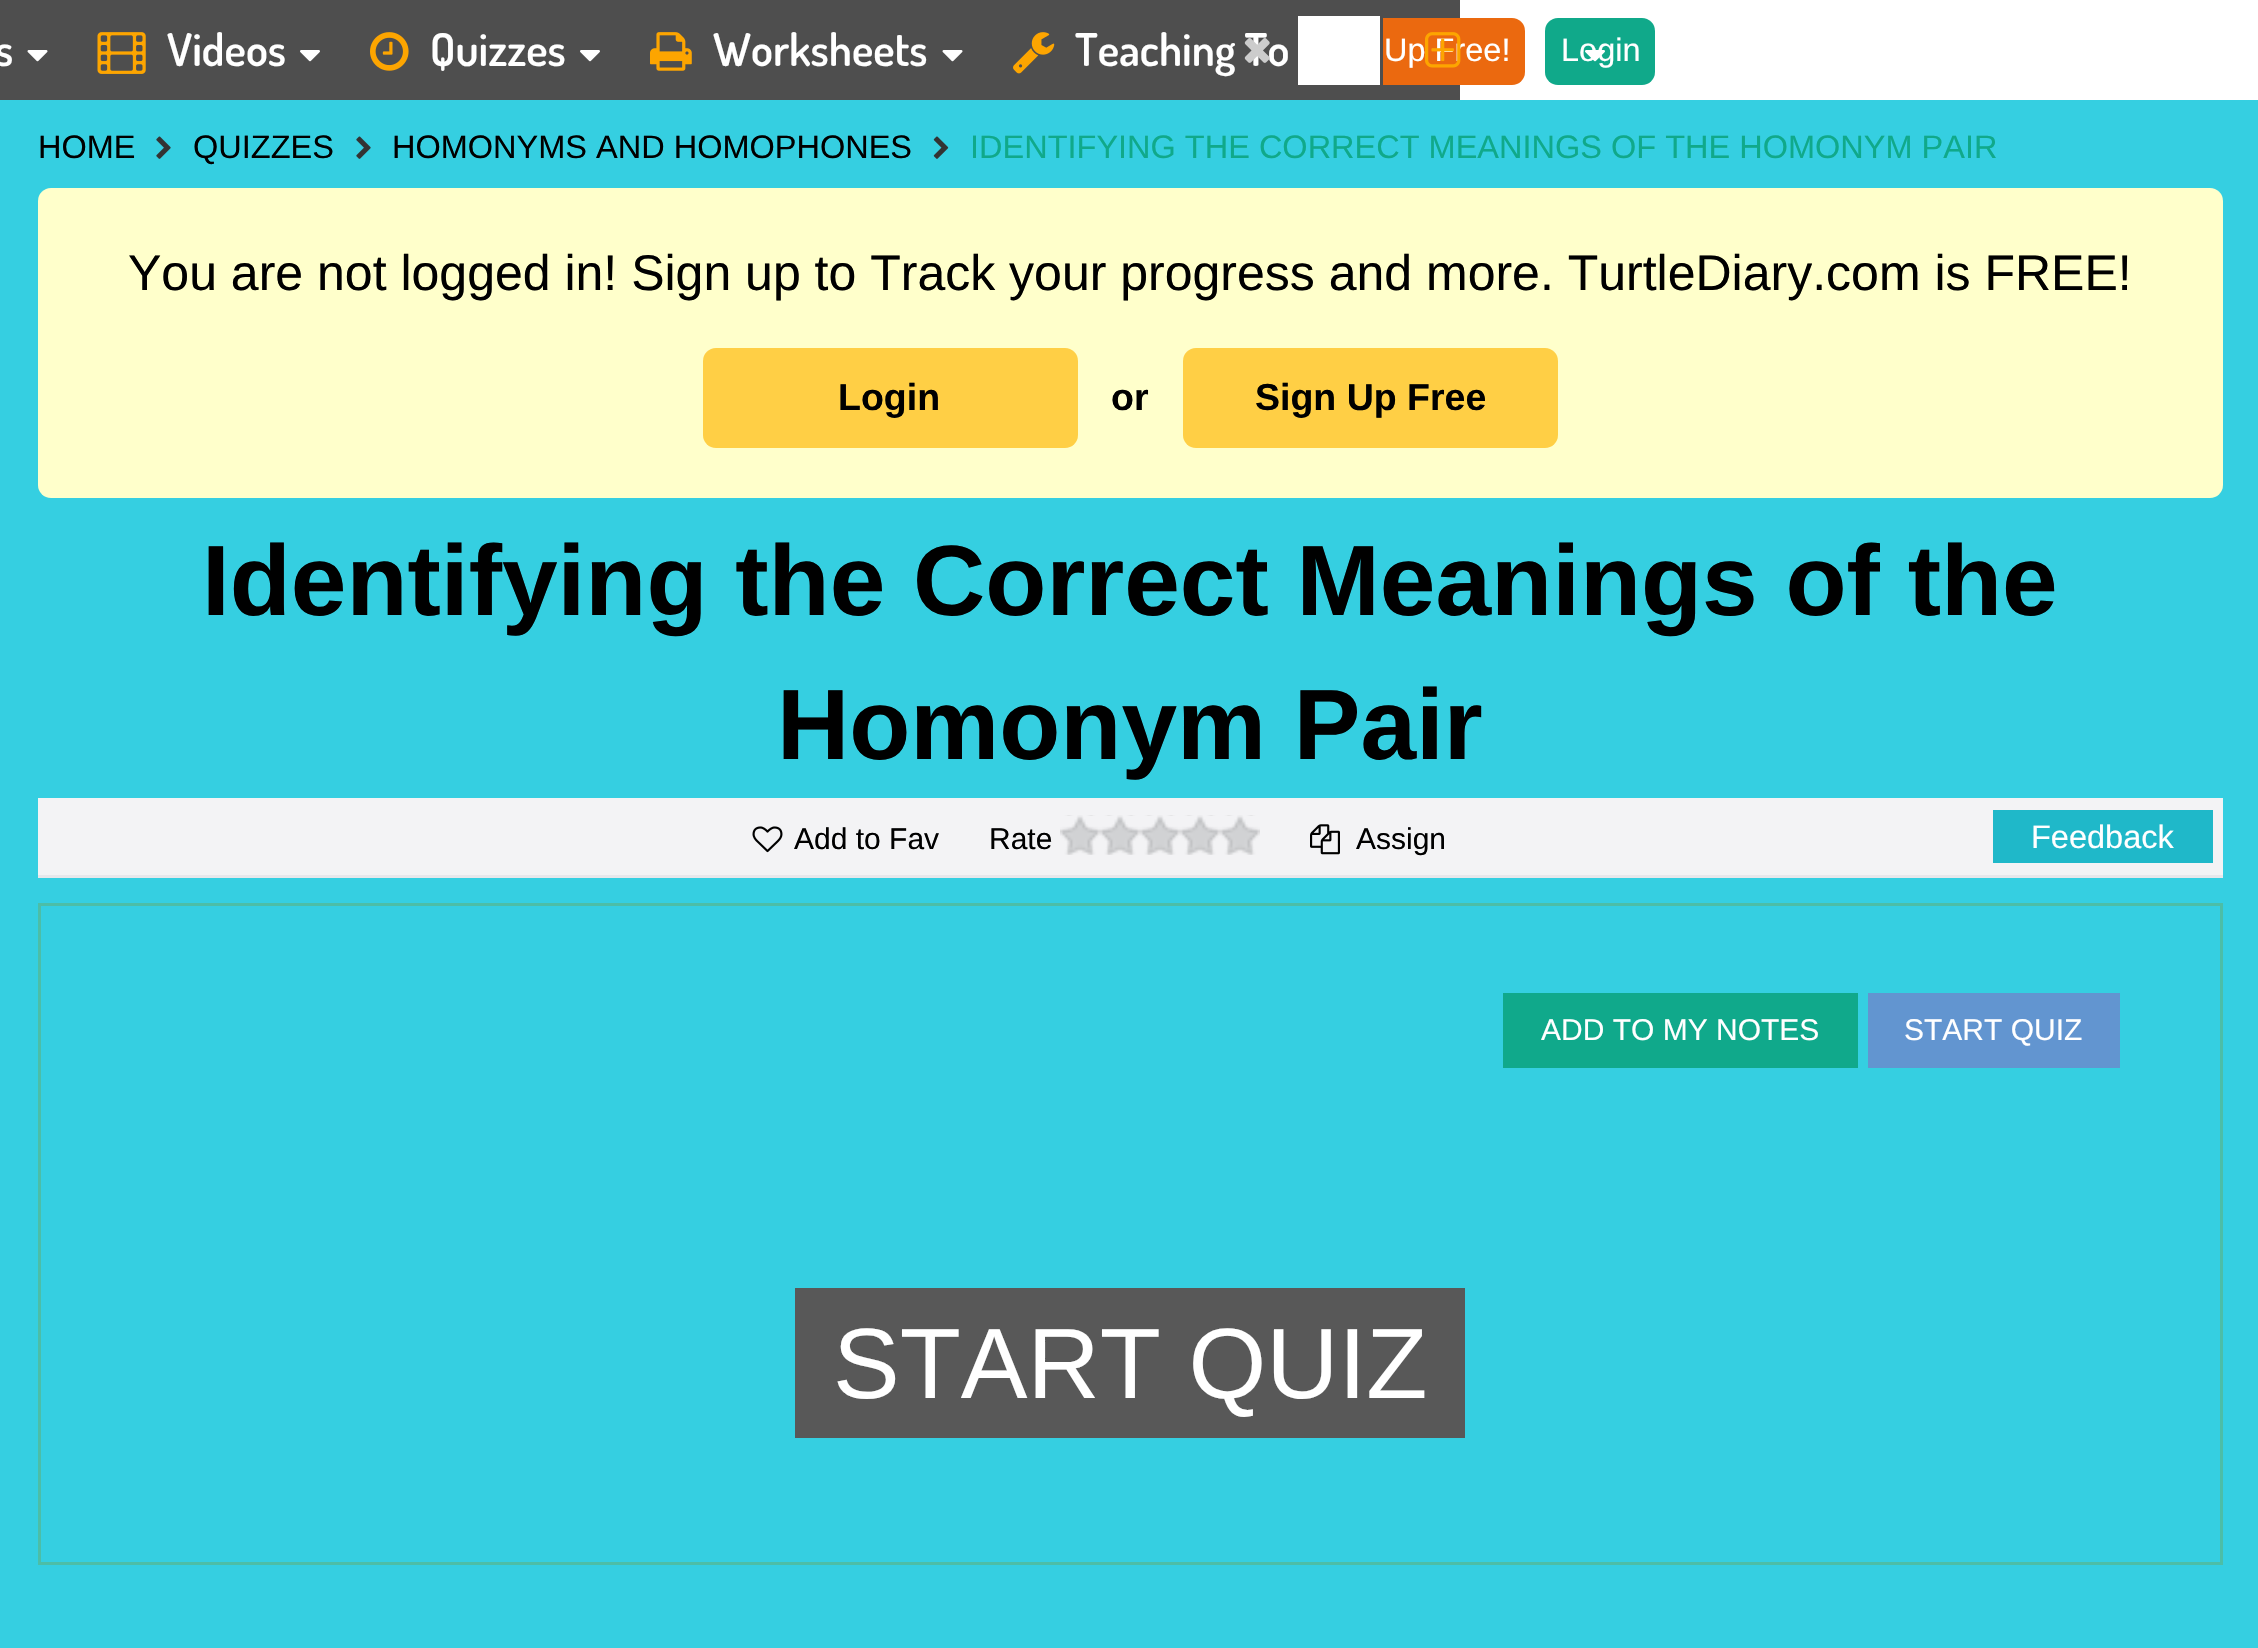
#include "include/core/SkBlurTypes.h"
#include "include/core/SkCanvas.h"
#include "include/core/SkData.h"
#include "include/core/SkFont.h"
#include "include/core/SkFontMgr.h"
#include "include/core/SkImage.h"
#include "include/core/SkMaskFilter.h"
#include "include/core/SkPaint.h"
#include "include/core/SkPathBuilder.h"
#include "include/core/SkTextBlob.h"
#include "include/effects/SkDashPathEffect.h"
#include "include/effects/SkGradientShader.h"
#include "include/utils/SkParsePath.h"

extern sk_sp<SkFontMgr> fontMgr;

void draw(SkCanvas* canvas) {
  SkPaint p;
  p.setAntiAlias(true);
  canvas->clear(SK_ColorWHITE);
  p.setColor(SkColorSetRGB(78, 78, 78));
  canvas->drawRect(SkRect::MakeLTRB(0, 0, 1460, 100), p);
  canvas->drawImageRect(SkImages::DeferredFromEncodedData(SkData::MakeFromFileName("images/1.png")), SkRect::MakeLTRB(27, 50, 48, 62), SkSamplingOptions());
  canvas->drawImageRect(SkImages::DeferredFromEncodedData(SkData::MakeFromFileName("images/2.png")), SkRect::MakeLTRB(97, 32, 146, 74), SkSamplingOptions());
  canvas->drawImageRect(SkImages::DeferredFromEncodedData(SkData::MakeFromFileName("images/3.png")), SkRect::MakeLTRB(300, 50, 320, 62), SkSamplingOptions());
  canvas->drawImageRect(SkImages::DeferredFromEncodedData(SkData::MakeFromFileName("images/4.png")), SkRect::MakeLTRB(370, 32, 409, 71), SkSamplingOptions());
  canvas->drawImageRect(SkImages::DeferredFromEncodedData(SkData::MakeFromFileName("images/3.png")), SkRect::MakeLTRB(580, 50, 600, 62), SkSamplingOptions());
  canvas->drawImageRect(SkImages::DeferredFromEncodedData(SkData::MakeFromFileName("images/5.png")), SkRect::MakeLTRB(650, 32, 692, 71), SkSamplingOptions());
  canvas->drawImageRect(SkImages::DeferredFromEncodedData(SkData::MakeFromFileName("images/1.png")), SkRect::MakeLTRB(942, 50, 963, 62), SkSamplingOptions());
  canvas->drawImageRect(SkImages::DeferredFromEncodedData(SkData::MakeFromFileName("images/6.png")), SkRect::MakeLTRB(1013, 32, 1055, 74), SkSamplingOptions());
  p.setColor(SkColorSetRGB(235, 105, 15));
  canvas->drawRoundRect(SkRect::MakeLTRB(1295, 18, 1525, 85), 13, 13, p);
  p.setColor(SK_ColorWHITE);
  canvas->drawRect(SkRect::MakeLTRB(1296.5f, 14.5f, 1381.5f, 86.5f), p);
  p.setStyle(SkPaint::kStroke_Style);
  p.setStrokeWidth(3);
  p.setColor(SkColorSetRGB(78, 78, 78));
  canvas->drawRect(SkRect::MakeLTRB(1296.5f, 14.5f, 1381.5f, 86.5f), p);
  p.setStyle(SkPaint::kFill_Style);
  p.setColor(SkColorSetRGB(16, 169, 138));
  canvas->drawRoundRect(SkRect::MakeLTRB(1545, 18, 1655, 85), 13, 13, p);
  p.setColor(SkColorSetRGB(53, 207, 225));
  canvas->drawRect(SkRect::MakeLTRB(0, 100, 2258, 1648), p);
  canvas->drawImageRect(SkImages::DeferredFromEncodedData(SkData::MakeFromFileName("images/10.png")), SkRect::MakeLTRB(156, 136, 171, 159), SkSamplingOptions());
  canvas->drawImageRect(SkImages::DeferredFromEncodedData(SkData::MakeFromFileName("images/10.png")), SkRect::MakeLTRB(356, 136, 371, 159), SkSamplingOptions());
  canvas->drawImageRect(SkImages::DeferredFromEncodedData(SkData::MakeFromFileName("images/11.png")), SkRect::MakeLTRB(933, 136, 949, 159), SkSamplingOptions());
  p.setColor(SkColorSetRGB(255, 255, 203));
  canvas->drawRoundRect(SkRect::MakeLTRB(38, 188, 2223, 498), 13, 13, p);
  p.setColor(SkColorSetRGB(255, 207, 69));
  canvas->drawRoundRect(SkRect::MakeLTRB(703, 348, 1078, 448), 13, 13, p);
  canvas->drawRoundRect(SkRect::MakeLTRB(1183, 348, 1558, 448), 13, 13, p);
  p.setColor(SkColorSetRGB(243, 243, 245));
  canvas->drawRect(SkRect::MakeLTRB(38, 798, 2223, 875), p);
  canvas->drawImageRect(SkImages::DeferredFromEncodedData(SkData::MakeFromFileName("images/12.png")), SkRect::MakeLTRB(752, 826, 783, 853), SkSamplingOptions());
  canvas->drawImageRect(SkImages::DeferredFromEncodedData(SkData::MakeFromFileName("images/13.png")), SkRect::MakeLTRB(1060, 815, 1260, 855), SkSamplingOptions());
  canvas->drawImageRect(SkImages::DeferredFromEncodedData(SkData::MakeFromFileName("images/14.png")), SkRect::MakeLTRB(1310, 824, 1340, 855), SkSamplingOptions());
  p.setColor(SkColorSetRGB(31, 184, 201));
  canvas->drawRect(SkRect::MakeLTRB(1993, 810, 2213, 863), p);
  p.setColor(SkColorSetRGB(231, 231, 235));
  canvas->drawRect(SkRect::MakeLTRB(38, 875, 2223, 878), p);
  p.setStyle(SkPaint::kStroke_Style);
  p.setColor(SkColorSetRGB(76, 190, 167));
  canvas->drawRect(SkRect::MakeLTRB(39.5f, 904.5f, 2221.5f, 1563.5f), p);
  p.setStyle(SkPaint::kFill_Style);
  p.setColor(SkColorSetRGB(16, 169, 139));
  canvas->drawRect(SkRect::MakeLTRB(1503, 993, 1858, 1068), p);
  p.setColor(SkColorSetRGB(98, 149, 208));
  canvas->drawRect(SkRect::MakeLTRB(1868, 993, 2120, 1068), p);
  p.setColor(SkColorSetRGB(88, 88, 88));
  canvas->drawRect(SkRect::MakeLTRB(795, 1288, 1465, 1438), p);
  SkFont font1(fontMgr->matchFamilyStyle("Dosis", SkFontStyle(600, SkFontStyle::kNormal_Width, SkFontStyle::kUpright_Slant)), 45);
  font1.setSubpixel(true);
  p.setColor(SK_ColorWHITE);
  canvas->drawString("s", -5, 66, font1, p);
  canvas->drawString("Videos", 167, 66, font1, p);
  canvas->drawString("Quizzes", 430, 66, font1, p);
  canvas->drawString("Worksheets", 713, 66, font1, p);
  canvas->drawString("Teaching To", 1075, 66, font1, p);
  canvas->drawImageRect(SkImages::DeferredFromEncodedData(SkData::MakeFromFileName("images/9.png")), SkRect::MakeLTRB(1244, 38, 1270, 63), SkSamplingOptions());
  SkFont font2(fontMgr->matchFamilyStyle("Liberation Sans", SkFontStyle::Normal()), 32.5f);
  font2.setSubpixel(true);
  canvas->drawString("Up Free!", 1384, 61, font2, p);
  canvas->drawImageRect(SkImages::DeferredFromEncodedData(SkData::MakeFromFileName("images/7.png")), SkRect::MakeLTRB(1425, 32, 1461, 68), SkSamplingOptions());
  canvas->drawString("Login", 1561, 61, font2, p);
  canvas->drawImageRect(SkImages::DeferredFromEncodedData(SkData::MakeFromFileName("images/8.png")), SkRect::MakeLTRB(1585, 50, 1605, 62), SkSamplingOptions());
  p.setColor(SK_ColorBLACK);
  canvas->drawString("HOME", 38, 158, font2, p);
  canvas->drawString("QUIZZES", 193, 158, font2, p);
  canvas->drawString("HOMONYMS AND HOMOPHONES", 392, 158, font2, p);
  p.setColor(SkColorSetRGB(16, 169, 138));
  canvas->drawString("IDENTIFYING THE CORRECT MEANINGS OF THE HOMONYM PAIR", 970, 158, font2, p);
  SkFont font3(fontMgr->matchFamilyStyle("Liberation Sans", SkFontStyle::Normal()), 50);
  font3.setSubpixel(true);
  p.setColor(SK_ColorBLACK);
  canvas->drawString("You are not logged in! Sign up to Track your progress and more. TurtleDiary.com is FREE!", 128, 290, font3, p);
  SkFont font4(fontMgr->matchFamilyStyle("Liberation Sans", SkFontStyle::Bold()), 37.5f);
  font4.setSubpixel(true);
  canvas->drawString("Login", 838, 410, font4, p);
  canvas->drawString("or", 1111, 410, font4, p);
  canvas->drawString("Sign Up Free", 1255, 410, font4, p);
  SkFont font5(fontMgr->matchFamilyStyle("Liberation Sans", SkFontStyle::Bold()), 100);
  font5.setSubpixel(true);
  canvas->drawString("Identifying the Correct Meanings of the", 202, 615, font5, p);
  canvas->drawString("Homonym Pair", 777, 759, font5, p);
  SkFont font6(fontMgr->matchFamilyStyle("Liberation Sans", SkFontStyle::Normal()), 30);
  font6.setSubpixel(true);
  canvas->drawString("Add to Fav", 794, 849, font6, p);
  canvas->drawString("Rate", 989, 849, font6, p);
  canvas->drawString("Assign", 1356, 849, font6, p);
  p.setColor(SK_ColorWHITE);
  canvas->drawString("Feedback", 2031, 848, font2, p);
  canvas->drawString("ADD TO MY NOTES", 1541, 1040, font6, p);
  canvas->drawString("START QUIZ", 1904, 1040, font6, p);
  SkFont font7(fontMgr->matchFamilyStyle("Liberation Sans", SkFontStyle::Normal()), 100);
  font7.setSubpixel(true);
  canvas->drawString("START QUIZ", 833, 1398, font7, p);
}
